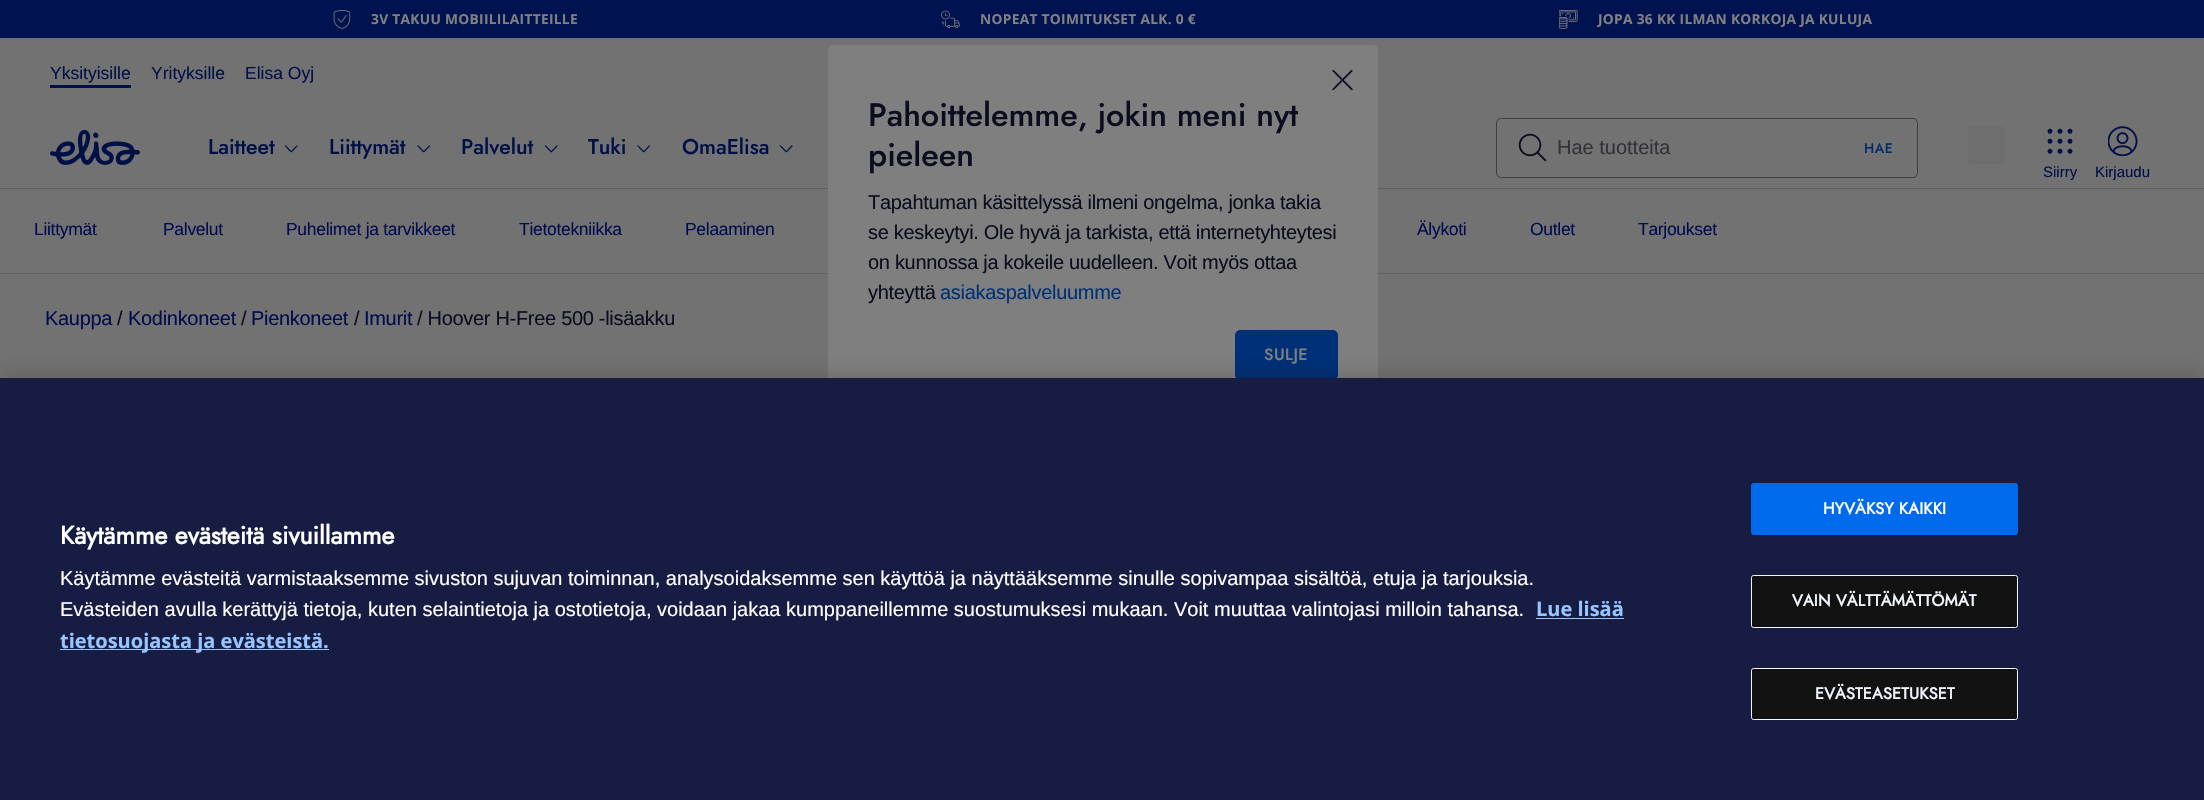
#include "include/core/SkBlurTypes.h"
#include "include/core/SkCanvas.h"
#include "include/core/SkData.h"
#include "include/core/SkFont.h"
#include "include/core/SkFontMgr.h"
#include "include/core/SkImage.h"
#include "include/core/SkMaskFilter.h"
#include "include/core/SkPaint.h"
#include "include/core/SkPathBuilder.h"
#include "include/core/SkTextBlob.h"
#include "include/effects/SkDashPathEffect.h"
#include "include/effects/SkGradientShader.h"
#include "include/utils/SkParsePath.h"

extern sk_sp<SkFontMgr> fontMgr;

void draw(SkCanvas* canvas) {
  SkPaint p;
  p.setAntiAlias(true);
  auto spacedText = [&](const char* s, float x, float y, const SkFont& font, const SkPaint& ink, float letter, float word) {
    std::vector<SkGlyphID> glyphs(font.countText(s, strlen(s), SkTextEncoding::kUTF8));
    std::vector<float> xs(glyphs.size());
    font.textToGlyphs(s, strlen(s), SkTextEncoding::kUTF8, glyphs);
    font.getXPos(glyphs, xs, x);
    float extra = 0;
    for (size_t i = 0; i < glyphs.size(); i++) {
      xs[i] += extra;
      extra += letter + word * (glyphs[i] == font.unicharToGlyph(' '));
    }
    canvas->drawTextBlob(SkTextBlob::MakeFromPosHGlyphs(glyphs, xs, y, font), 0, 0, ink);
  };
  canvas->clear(SkColorSetRGB(114, 114, 114));
  p.setColor(SkColorSetRGB(0, 18, 79));
  canvas->drawRect(SkRect::MakeLTRB(0, 0, 2204, 38), p);
  canvas->drawImageRect(SkImages::DeferredFromEncodedData(SkData::MakeFromFileName("images/1.png")), SkRect::MakeLTRB(333, 10, 351, 29), SkSamplingOptions());
  canvas->drawImageRect(SkImages::DeferredFromEncodedData(SkData::MakeFromFileName("images/2.png")), SkRect::MakeLTRB(941, 10, 960, 29), SkSamplingOptions());
  canvas->drawImageRect(SkImages::DeferredFromEncodedData(SkData::MakeFromFileName("images/3.png")), SkRect::MakeLTRB(1559, 10, 1578, 29), SkSamplingOptions());
  p.setColor(SkColorSetRGB(95, 95, 97));
  canvas->drawRect(SkRect::MakeLTRB(0, 188, 2204, 189), p);
  p.setColor(SkColorSetRGB(0, 16, 71));
  canvas->drawRect(SkRect::MakeLTRB(50, 85, 131, 88), p);
  canvas->drawImageRect(SkImages::DeferredFromEncodedData(SkData::MakeFromFileName("images/4.png")), SkRect::MakeLTRB(50, 130, 140, 165), SkSamplingOptions());
  canvas->drawImageRect(SkImages::DeferredFromEncodedData(SkData::MakeFromFileName("images/5.png")), SkRect::MakeLTRB(284, 145, 298, 153), SkSamplingOptions());
  canvas->drawImageRect(SkImages::DeferredFromEncodedData(SkData::MakeFromFileName("images/6.png")), SkRect::MakeLTRB(417, 145, 431, 153), SkSamplingOptions());
  canvas->drawImageRect(SkImages::DeferredFromEncodedData(SkData::MakeFromFileName("images/5.png")), SkRect::MakeLTRB(544, 145, 558, 153), SkSamplingOptions());
  canvas->drawImageRect(SkImages::DeferredFromEncodedData(SkData::MakeFromFileName("images/6.png")), SkRect::MakeLTRB(637, 145, 651, 153), SkSamplingOptions());
  canvas->drawImageRect(SkImages::DeferredFromEncodedData(SkData::MakeFromFileName("images/5.png")), SkRect::MakeLTRB(779, 145, 793, 153), SkSamplingOptions());
  p.setColor(SkColorSetRGB(111, 111, 111));
  canvas->drawRect(SkRect::MakeLTRB(1496, 118, 1918, 178), p);
  p.setColor(SkColorSetRGB(114, 114, 114));
  canvas->drawRoundRect(SkRect::MakeLTRB(1496.5f, 118.5f, 1917.5f, 177.5f), 4.5f, 4.5f, p);
  p.setStyle(SkPaint::kStroke_Style);
  p.setStrokeWidth(1);
  p.setColor(SkColorSetRGB(64, 64, 67));
  canvas->drawRoundRect(SkRect::MakeLTRB(1496.5f, 118.5f, 1917.5f, 177.5f), 4.5f, 4.5f, p);
  canvas->drawImageRect(SkImages::DeferredFromEncodedData(SkData::MakeFromFileName("images/7.png")), SkRect::MakeLTRB(1518, 133, 1547, 162), SkSamplingOptions());
  p.setStyle(SkPaint::kFill_Style);
  p.setColor(SkColorSetRGB(110, 110, 110));
  canvas->drawRoundRect(SkRect::MakeLTRB(1968, 126, 2005, 164), 5, 5, p);
  canvas->drawImageRect(SkImages::DeferredFromEncodedData(SkData::MakeFromFileName("images/8.png")), SkRect::MakeLTRB(2047, 128, 2073, 154), SkSamplingOptions());
  canvas->drawImageRect(SkImages::DeferredFromEncodedData(SkData::MakeFromFileName("images/9.png")), SkRect::MakeLTRB(2108, 126, 2138, 156), SkSamplingOptions());
  p.setColor(SkColorSetRGB(101, 101, 102));
  canvas->drawRect(SkRect::MakeLTRB(0, 273, 2204, 274), p);
  p.setColor(SkColorSetRGB(127, 127, 127));
  canvas->drawRoundRect(SkRect::MakeLTRB(828, 45, 1378, 420), 5, 5, p);
  canvas->drawImageRect(SkImages::DeferredFromEncodedData(SkData::MakeFromFileName("images/10.png")), SkRect::MakeLTRB(1332, 69, 1353, 91), SkSamplingOptions());
  p.setColor(SkColorSetRGB(0, 48, 119));
  canvas->drawRoundRect(SkRect::MakeLTRB(1235.5f, 330.5f, 1337.5f, 379.5f), 4.5f, 4.5f, p);
  p.setStyle(SkPaint::kStroke_Style);
  canvas->drawRoundRect(SkRect::MakeLTRB(1235.5f, 330.5f, 1337.5f, 379.5f), 4.5f, 4.5f, p);
  p.setStyle(SkPaint::kFill_Style);
  p.setColor(SkColorSetARGB(51, 0, 0, 0));
  p.setMaskFilter(SkMaskFilter::MakeBlur(kNormal_SkBlurStyle, 11));
  canvas->drawRect(SkRect::MakeLTRB(0, 378, 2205, 800), p);
  p.setMaskFilter(nullptr);
  p.setColor(SkColorSetRGB(23, 28, 67));
  canvas->drawRect(SkRect::MakeLTRB(0, 378, 2204, 800), p);
  p.setColor(SkColorSetRGB(150, 197, 255));
  canvas->drawRect(SkRect::MakeLTRB(1536, 618, 1624, 619), p);
  canvas->drawRect(SkRect::MakeLTRB(60, 649, 329, 650), p);
  p.setColor(SkColorSetRGB(0, 106, 237));
  canvas->drawRoundRect(SkRect::MakeLTRB(1751.5f, 483.5f, 2017.5f, 534.5f), 2, 2, p);
  p.setStyle(SkPaint::kStroke_Style);
  canvas->drawRoundRect(SkRect::MakeLTRB(1751.5f, 483.5f, 2017.5f, 534.5f), 2, 2, p);
  p.setStyle(SkPaint::kFill_Style);
  p.setColor(SkColorSetRGB(18, 18, 18));
  canvas->drawRoundRect(SkRect::MakeLTRB(1751.5f, 575.5f, 2017.5f, 627.5f), 2, 2, p);
  p.setStyle(SkPaint::kStroke_Style);
  p.setColor(SkColorSetRGB(240, 247, 255));
  canvas->drawRoundRect(SkRect::MakeLTRB(1751.5f, 575.5f, 2017.5f, 627.5f), 2, 2, p);
  p.setStyle(SkPaint::kFill_Style);
  p.setColor(SkColorSetRGB(18, 18, 18));
  canvas->drawRoundRect(SkRect::MakeLTRB(1751.5f, 668.5f, 2017.5f, 719.5f), 2, 2, p);
  p.setStyle(SkPaint::kStroke_Style);
  p.setColor(SkColorSetRGB(240, 247, 255));
  canvas->drawRoundRect(SkRect::MakeLTRB(1751.5f, 668.5f, 2017.5f, 719.5f), 2, 2, p);
  SkFont font1(fontMgr->matchFamilyStyle("Open Sans", SkFontStyle::Bold()), 13.75f);
  font1.setSubpixel(true);
  p.setStyle(SkPaint::kFill_Style);
  p.setColor(SkColorSetRGB(128, 128, 128));
  spacedText("3V TAKUU MOBIILILAITTEILLE", 371, 24, font1, p, 0.3f, 0);
  spacedText("NOPEAT TOIMITUKSET ALK. 0 €", 980, 24, font1, p, 0.3f, 0);
  spacedText("JOPA 36 KK ILMAN KORKOJA JA KULUJA", 1598, 24, font1, p, 0.3f, 0);
  SkFont font2(fontMgr->matchFamilyStyle("Liberation Sans", SkFontStyle::Normal()), 17.5f);
  font2.setSubpixel(true);
  p.setColor(SkColorSetRGB(0, 16, 71));
  canvas->drawString("Yksityisille", 50, 79, font2, p);
  canvas->drawString("Yrityksille", 151, 79, font2, p);
  canvas->drawString("Elisa Oyj", 245, 79, font2, p);
  SkFont font3(fontMgr->matchFamilyStyle("Jost", SkFontStyle(500, SkFontStyle::kNormal_Width, SkFontStyle::kUpright_Slant)), 21.25f);
  font3.setSubpixel(true);
  canvas->drawString("Laitteet", 208, 154, font3, p);
  canvas->drawString("Liittymät", 329, 154, font3, p);
  canvas->drawString("Palvelut", 461, 154, font3, p);
  canvas->drawString("Tuki", 588, 154, font3, p);
  canvas->drawString("OmaElisa", 682, 154, font3, p);
  SkFont font4(fontMgr->matchFamilyStyle("Liberation Sans", SkFontStyle::Normal()), 20);
  font4.setSubpixel(true);
  p.setColor(SkColorSetRGB(51, 51, 55));
  canvas->drawString("Hae tuotteita", 1557, 154, font4, p);
  SkFont font5(fontMgr->matchFamilyStyle("Jost", SkFontStyle(500, SkFontStyle::kNormal_Width, SkFontStyle::kUpright_Slant)), 13.75f);
  font5.setSubpixel(true);
  p.setColor(SkColorSetRGB(0, 43, 107));
  spacedText("HAE", 1864, 153, font5, p, 0.5f, 0);
  SkFont font6(fontMgr->matchFamilyStyle("Liberation Sans", SkFontStyle::Normal()), 15);
  font6.setSubpixel(true);
  p.setColor(SkColorSetRGB(0, 16, 71));
  canvas->drawString("Siirry", 2043, 177, font6, p);
  canvas->drawString("Kirjaudu", 2095, 177, font6, p);
  SkFont font7(fontMgr->matchFamilyStyle("Jost", SkFontStyle(500, SkFontStyle::kNormal_Width, SkFontStyle::kUpright_Slant)), 32.5f);
  font7.setSubpixel(true);
  p.setColor(SkColorSetRGB(11, 13, 30));
  canvas->drawString("Pahoittelemme, jokin meni nyt", 868, 126, font7, p);
  canvas->drawString("pieleen", 868, 166, font7, p);
  spacedText("Tapahtuman käsittelyssä ilmeni ongelma, jonka takia", 868, 209, font4, p, -0.3f, 0);
  spacedText("se keskeytyi. Ole hyvä ja tarkista, että internetyhteytesi", 868, 239, font4, p, -0.3f, 0);
  spacedText("on kunnossa ja kokeile uudelleen. Voit myös ottaa", 868, 269, font4, p, -0.3f, 0);
  spacedText("yhteyttä", 868, 299, font4, p, -0.3f, 0);
  p.setColor(SkColorSetRGB(0, 48, 119));
  spacedText("asiakaspalveluumme", 940, 299, font4, p, -0.3f, 0);
  SkFont font8(fontMgr->matchFamilyStyle("Jost", SkFontStyle(500, SkFontStyle::kNormal_Width, SkFontStyle::kUpright_Slant)), 16.25f);
  font8.setSubpixel(true);
  p.setColor(SkColorSetRGB(128, 128, 128));
  spacedText("SULJE", 1264, 360, font8, p, 0.5f, 0);
  p.setColor(SkColorSetRGB(0, 12, 79));
  spacedText("Liittymät", 34, 235, font2, p, -0.3f, 0);
  spacedText("Palvelut", 163, 235, font2, p, -0.3f, 0);
  spacedText("Puhelimet ja tarvikkeet", 286, 235, font2, p, -0.3f, 0);
  spacedText("Tietotekniikka", 519, 235, font2, p, -0.3f, 0);
  spacedText("Pelaaminen", 685, 235, font2, p, -0.3f, 0);
  spacedText("Älykoti", 1417, 235, font2, p, -0.3f, 0);
  spacedText("Outlet", 1530, 235, font2, p, -0.3f, 0);
  spacedText("Tarjoukset", 1638, 235, font2, p, -0.3f, 0);
  spacedText("Kauppa", 45, 325, font4, p, -0.3f, 0);
  p.setColor(SkColorSetRGB(11, 13, 30));
  spacedText("/", 117, 325, font4, p, -0.3f, 0);
  p.setColor(SkColorSetRGB(0, 12, 79));
  spacedText("Kodinkoneet", 128, 325, font4, p, -0.3f, 0);
  p.setColor(SkColorSetRGB(11, 13, 30));
  spacedText("/", 241, 325, font4, p, -0.3f, 0);
  p.setColor(SkColorSetRGB(0, 12, 79));
  spacedText("Pienkoneet", 251, 325, font4, p, -0.3f, 0);
  p.setColor(SkColorSetRGB(11, 13, 30));
  spacedText("/", 354, 325, font4, p, -0.3f, 0);
  p.setColor(SkColorSetRGB(0, 12, 79));
  spacedText("Imurit", 364, 325, font4, p, -0.3f, 0);
  p.setColor(SkColorSetRGB(11, 13, 30));
  spacedText("/ Hoover H-Free 500 -lisäakku", 417, 325, font4, p, -0.3f, 0);
  SkFont font9(fontMgr->matchFamilyStyle("Jost", SkFontStyle::Bold()), 25);
  font9.setSubpixel(true);
  p.setColor(SK_ColorWHITE);
  canvas->drawString("Käytämme evästeitä sivuillamme", 60, 544, font9, p);
  canvas->drawString("Käytämme evästeitä varmistaaksemme sivuston sujuvan toiminnan, analysoidaksemme sen käyttöä ja näyttääksemme sinulle sopivampaa sisältöä, etuja ja tarjouksia.", 60, 585, font4, p);
  canvas->drawString("Evästeiden avulla kerättyjä tietoja, kuten selaintietoja ja ostotietoja, voidaan jakaa kumppaneillemme suostumuksesi mukaan. Voit muuttaa valintojasi milloin tahansa.", 60, 616, font4, p);
  SkFont font10(fontMgr->matchFamilyStyle("Open Sans", SkFontStyle::Bold()), 20);
  font10.setSubpixel(true);
  p.setColor(SkColorSetRGB(150, 197, 255));
  canvas->drawString("Lue lisää", 1536, 616, font10, p);
  canvas->drawString("tietosuojasta ja evästeistä.", 60, 648, font10, p);
  SkFont font11(fontMgr->matchFamilyStyle("Jost", SkFontStyle::Bold()), 16.25f);
  font11.setSubpixel(true);
  p.setColor(SK_ColorWHITE);
  spacedText("HYVÄKSY KAIKKI", 1823, 514, font11, p, 0.2f, 0);
  p.setColor(SkColorSetRGB(240, 247, 255));
  spacedText("VAIN VÄLTTÄMÄTTÖMÄT", 1792, 606, font11, p, 0.2f, 0);
  spacedText("EVÄSTEASETUKSET", 1815, 699, font11, p, 0.2f, 0);
}
